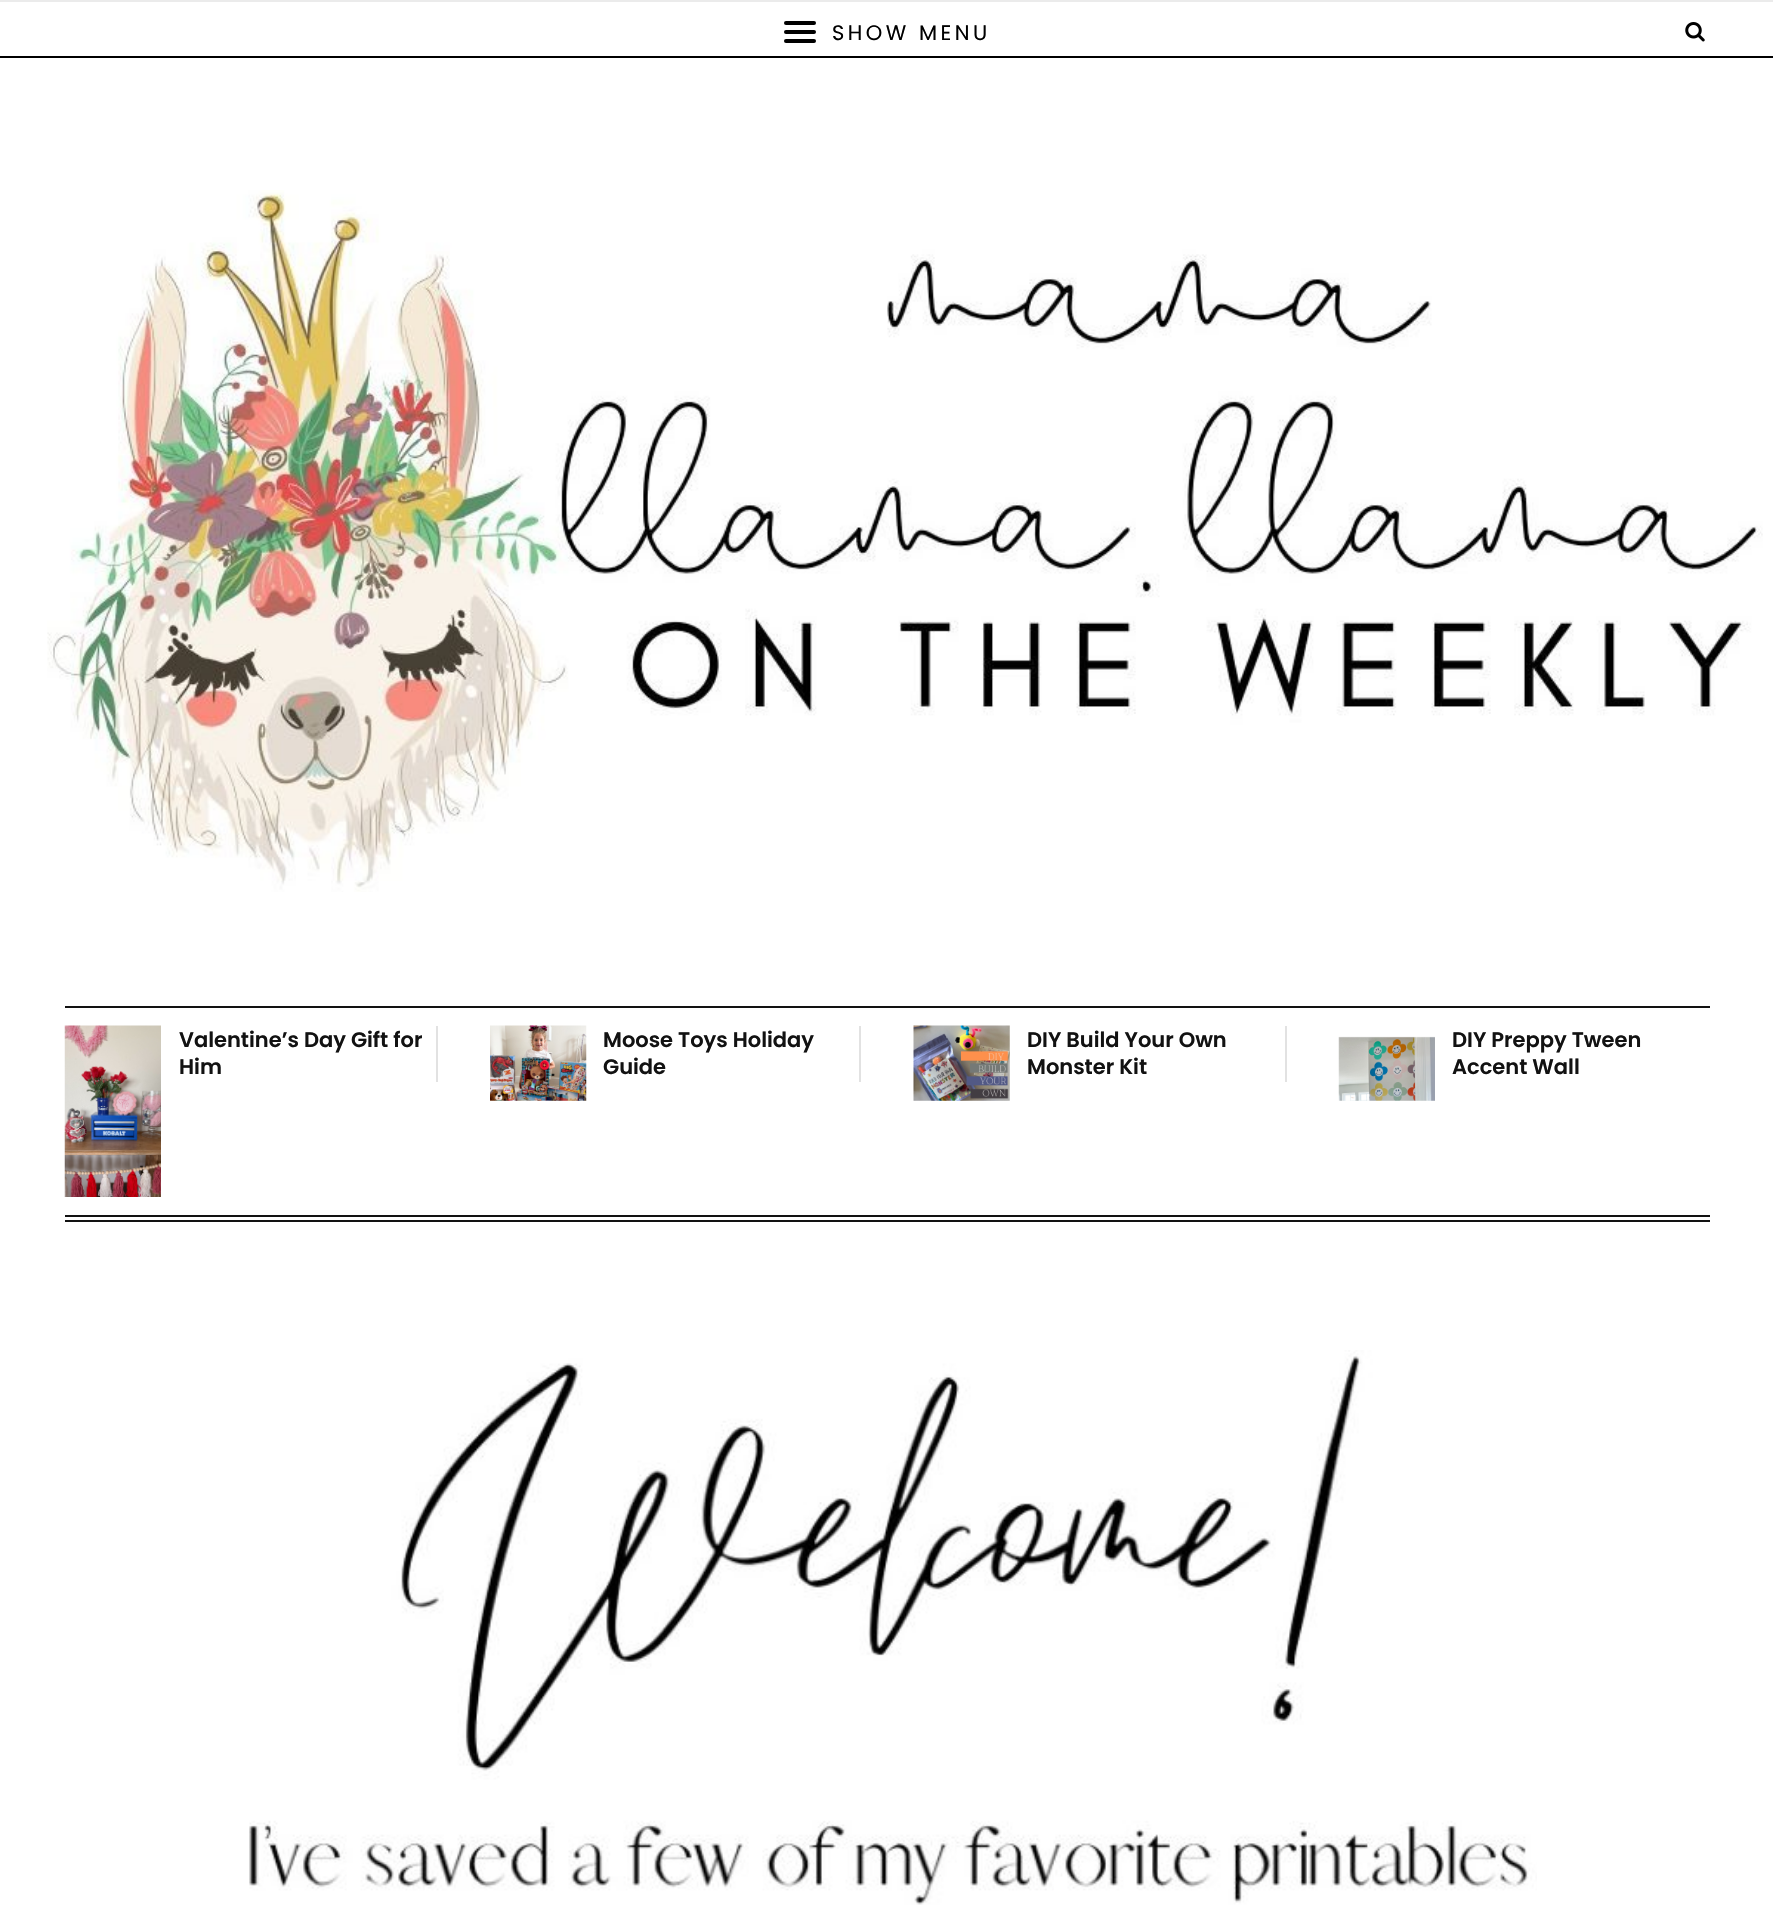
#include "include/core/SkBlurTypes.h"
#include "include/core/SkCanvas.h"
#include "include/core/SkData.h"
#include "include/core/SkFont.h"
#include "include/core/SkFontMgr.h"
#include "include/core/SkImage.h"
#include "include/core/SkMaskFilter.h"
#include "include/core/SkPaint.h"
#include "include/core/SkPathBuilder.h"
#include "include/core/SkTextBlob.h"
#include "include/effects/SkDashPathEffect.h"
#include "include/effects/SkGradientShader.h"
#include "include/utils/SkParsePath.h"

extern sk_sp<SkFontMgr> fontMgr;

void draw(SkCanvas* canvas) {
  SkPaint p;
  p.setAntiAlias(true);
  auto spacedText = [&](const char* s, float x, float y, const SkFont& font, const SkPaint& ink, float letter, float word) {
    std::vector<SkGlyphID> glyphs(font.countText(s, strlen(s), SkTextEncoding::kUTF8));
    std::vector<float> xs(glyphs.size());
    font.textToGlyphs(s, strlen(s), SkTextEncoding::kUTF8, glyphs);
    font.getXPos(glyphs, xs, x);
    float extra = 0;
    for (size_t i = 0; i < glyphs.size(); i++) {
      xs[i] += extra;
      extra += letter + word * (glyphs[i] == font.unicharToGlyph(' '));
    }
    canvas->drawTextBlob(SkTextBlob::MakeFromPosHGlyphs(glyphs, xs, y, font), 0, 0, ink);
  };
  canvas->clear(SK_ColorWHITE);
  p.setColor(SkColorSetRGB(235, 235, 235));
  canvas->drawRect(SkRect::MakeLTRB(0, 0, 1773, 2), p);
  p.setColor(SK_ColorBLACK);
  canvas->drawRect(SkRect::MakeLTRB(0, 56, 1773, 58), p);
  canvas->drawRoundRect(SkRect::MakeLTRB(784, 21, 816, 25), 2, 2, p);
  canvas->drawRoundRect(SkRect::MakeLTRB(784, 30, 816, 34), 2, 2, p);
  canvas->drawRoundRect(SkRect::MakeLTRB(784, 39, 816, 43), 2, 2, p);
  canvas->drawImageRect(SkImages::DeferredFromEncodedData(SkData::MakeFromFileName("images/1.png")), SkRect::MakeLTRB(1685, 22, 1705, 42), SkSamplingOptions());
  canvas->drawImageRect(SkImages::DeferredFromEncodedData(SkData::MakeFromFileName("images/2.png")), SkRect::MakeLTRB(47, 190, 1763, 892), SkSamplingOptions());
  p.setColor(SkColorSetRGB(18, 18, 18));
  canvas->drawRect(SkRect::MakeLTRB(65, 1006, 1710, 1008), p);
  canvas->drawRect(SkRect::MakeLTRB(65, 1215, 1710, 1217), p);
  canvas->drawRect(SkRect::MakeLTRB(65, 1220, 1710, 1222), p);
  p.setColor(SkColorSetRGB(226, 226, 226));
  canvas->drawRect(SkRect::MakeLTRB(436, 1026, 438, 1082), p);
  canvas->drawImageRect(SkImages::DeferredFromEncodedData(SkData::MakeFromFileName("images/3.png")), SkRect::MakeLTRB(64, 1025, 161, 1197), SkSamplingOptions());
  canvas->drawRect(SkRect::MakeLTRB(859, 1026, 861, 1082), p);
  canvas->drawImageRect(SkImages::DeferredFromEncodedData(SkData::MakeFromFileName("images/4.png")), SkRect::MakeLTRB(490, 1025, 587, 1101), SkSamplingOptions());
  canvas->drawRect(SkRect::MakeLTRB(1285, 1026, 1287, 1082), p);
  canvas->drawImageRect(SkImages::DeferredFromEncodedData(SkData::MakeFromFileName("images/5.png")), SkRect::MakeLTRB(913, 1025, 1010, 1101), SkSamplingOptions());
  canvas->drawImageRect(SkImages::DeferredFromEncodedData(SkData::MakeFromFileName("images/6.png")), SkRect::MakeLTRB(1338, 1036, 1435, 1101), SkSamplingOptions());
  canvas->drawImageRect(SkImages::DeferredFromEncodedData(SkData::MakeFromFileName("images/7.png")), SkRect::MakeLTRB(249, 1350, 1537, 1905), SkSamplingOptions());
  SkFont font1(fontMgr->matchFamilyStyle("Poppins", SkFontStyle::Normal()), 21);
  font1.setSubpixel(true);
  p.setColor(SK_ColorBLACK);
  spacedText("SHOW MENU", 832, 40, font1, p, 3.5f, 0);
  SkFont font2(fontMgr->matchFamilyStyle("Poppins", SkFontStyle(600, SkFontStyle::kNormal_Width, SkFontStyle::kUpright_Slant)), 21);
  font2.setSubpixel(true);
  p.setColor(SkColorSetRGB(18, 18, 18));
  canvas->drawString("Valentine’s Day Gift for", 179, 1047, font2, p);
  canvas->drawString("Him", 179, 1074, font2, p);
  canvas->drawString("Moose Toys Holiday", 603, 1047, font2, p);
  canvas->drawString("Guide", 603, 1074, font2, p);
  canvas->drawString("DIY Build Your Own", 1027, 1047, font2, p);
  canvas->drawString("Monster Kit", 1027, 1074, font2, p);
  canvas->drawString("DIY Preppy Tween", 1452, 1047, font2, p);
  canvas->drawString("Accent Wall", 1452, 1074, font2, p);
}
